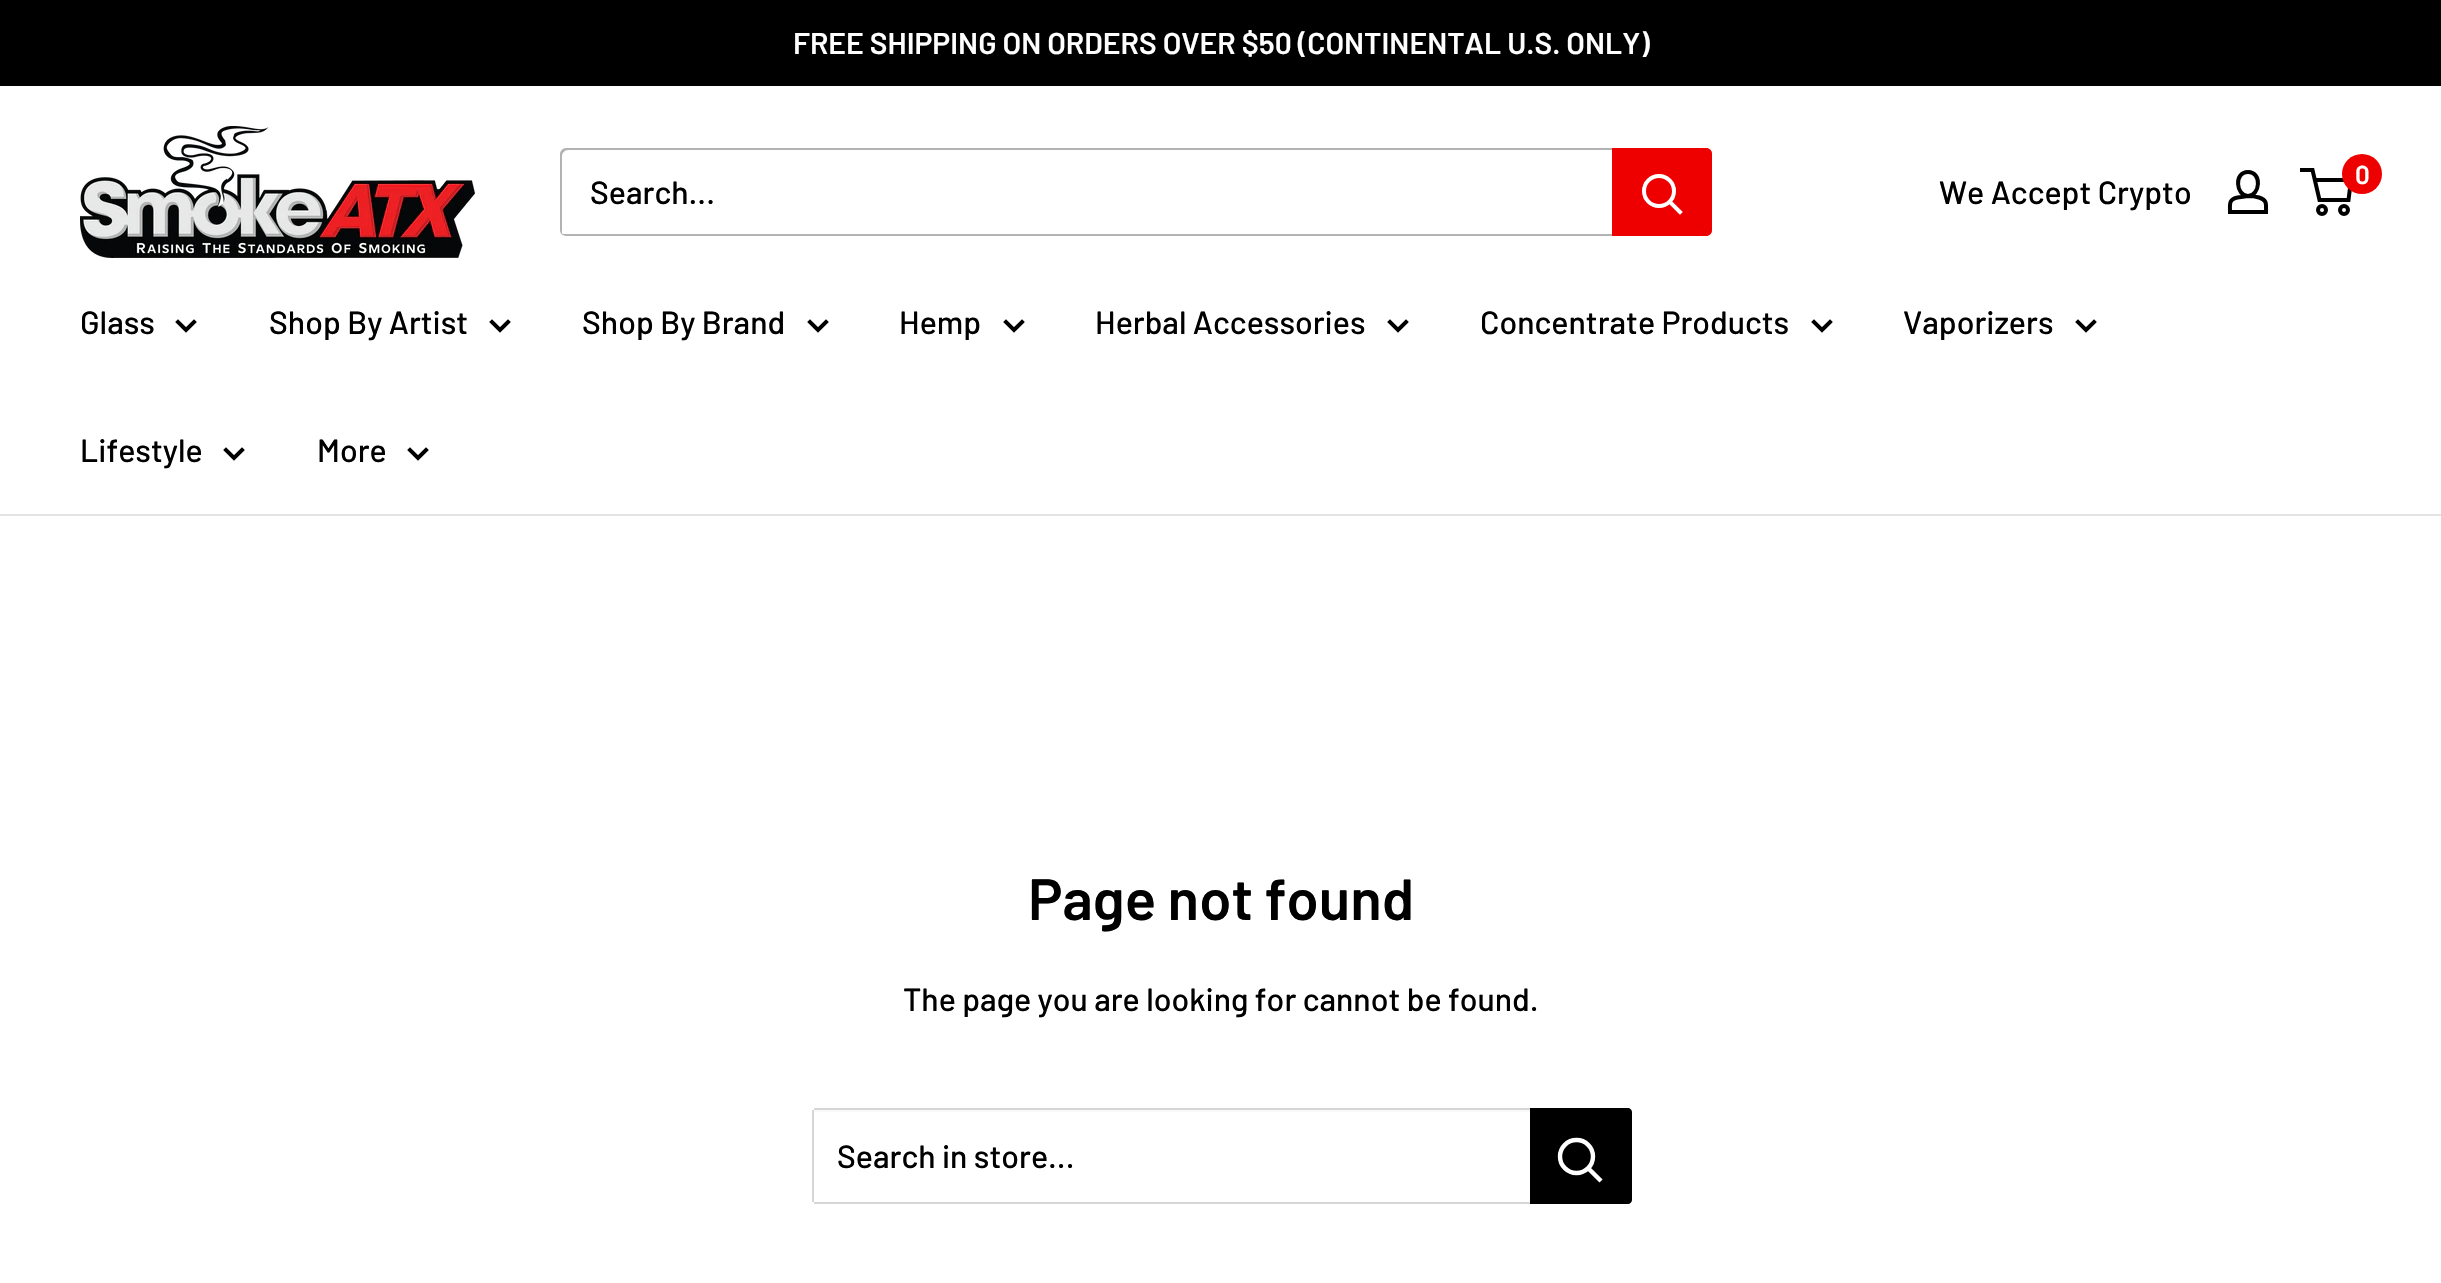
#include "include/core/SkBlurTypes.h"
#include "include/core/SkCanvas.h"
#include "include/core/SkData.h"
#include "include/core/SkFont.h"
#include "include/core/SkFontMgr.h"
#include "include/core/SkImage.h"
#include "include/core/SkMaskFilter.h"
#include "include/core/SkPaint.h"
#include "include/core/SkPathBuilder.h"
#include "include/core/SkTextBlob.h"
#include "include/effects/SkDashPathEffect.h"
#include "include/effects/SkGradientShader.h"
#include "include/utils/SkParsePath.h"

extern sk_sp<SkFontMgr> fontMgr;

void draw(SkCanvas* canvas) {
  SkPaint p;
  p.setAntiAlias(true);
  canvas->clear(SK_ColorWHITE);
  p.setColor(SK_ColorBLACK);
  canvas->drawRect(SkRect::MakeLTRB(0, 0, 2441, 86), p);
  canvas->drawImageRect(SkImages::DeferredFromEncodedData(SkData::MakeFromFileName("images/1.png")), SkRect::MakeLTRB(80, 126, 475, 258), SkSamplingOptions());
  p.setColor(SkColorSetRGB(179, 179, 179));
  canvas->drawPath(SkPathBuilder().moveTo(561, 233).cubicTo(562, 235, 564, 236, 566, 236).lineTo(1706, 236).cubicTo(1709, 236, 1712, 233, 1712, 230).lineTo(1712, 154).cubicTo(1712, 152, 1711, 150, 1709, 149).cubicTo(1710, 150, 1710, 151, 1710, 152).lineTo(1710, 228).cubicTo(1710, 231, 1707, 234, 1704, 234).lineTo(564, 234).cubicTo(563, 234, 562, 234, 561, 233).close().detach(), p);
  p.setColor(SkColorSetARGB(77, 0, 0, 0));
  canvas->drawPath(SkPathBuilder().moveTo(568, 150).lineTo(1708, 150).lineTo(1711, 151).cubicTo(1710, 149, 1708, 148, 1706, 148).lineTo(566, 148).cubicTo(563, 148, 560, 151, 560, 154).lineTo(560, 230).cubicTo(560, 232, 561, 234, 563, 235).cubicTo(562, 234, 562, 233, 562, 232).lineTo(562, 156).cubicTo(562, 153, 565, 150, 568, 150).close().detach(), p);
  p.setColor(SkColorSetRGB(238, 0, 0));
  canvas->drawPath(SkPathBuilder().moveTo(1612, 148).lineTo(1706, 148).cubicTo(1709.5f, 148, 1712, 150.5f, 1712, 154).lineTo(1712, 230).cubicTo(1712, 233.5f, 1709.5f, 236, 1706, 236).lineTo(1612, 236).close().detach(), p);
  p.setStyle(SkPaint::kStroke_Style);
  p.setStrokeWidth(4);
  p.setStrokeCap(SkPaint::kSquare_Cap);
  p.setColor(SK_ColorWHITE);
  canvas->drawPath(SkPathBuilder().moveTo(1680, 212).lineTo(1670, 202).detach(), p);
  p.setStrokeCap(SkPaint::kButt_Cap);
  canvas->drawCircle(1659, 191, 15, p);
  p.setColor(SK_ColorBLACK);
  canvas->drawPath(SkPathBuilder().moveTo(2248, 196).cubicTo(2252, 196, 2255.5f, 196.5f, 2259, 197.5f).cubicTo(2267.5f, 200, 2266, 204.5f, 2266, 212).lineTo(2230, 212).cubicTo(2230, 204, 2228.5f, 199.5f, 2237.5f, 197.5f).close().moveTo(2248, 196).cubicTo(2236, 196, 2233.5f, 172, 2248, 172).cubicTo(2262.5f, 172, 2260, 196, 2248, 196).close().detach(), p);
  canvas->drawCircle(2322, 210, 4, p);
  canvas->drawCircle(2344, 210, 4, p);
  canvas->drawPath(SkPathBuilder().moveTo(2314.5f, 180).lineTo(2351, 180).lineTo(2348.5f, 200).lineTo(2319.5f, 200).lineTo(2312.5f, 170).lineTo(2300, 170).detach(), p);
  p.setStyle(SkPaint::kFill_Style);
  p.setColor(SkColorSetRGB(238, 0, 0));
  canvas->drawCircle(2362, 174, 20, p);
  p.setColor(SkColorSetRGB(225, 227, 228));
  canvas->drawRect(SkRect::MakeLTRB(0, 514, 2441, 516), p);
  p.setStyle(SkPaint::kStroke_Style);
  p.setStrokeCap(SkPaint::kSquare_Cap);
  p.setColor(SK_ColorBLACK);
  canvas->drawPath(SkPathBuilder().moveTo(194, 322).lineTo(186, 330).lineTo(178, 322).detach(), p);
  canvas->drawPath(SkPathBuilder().moveTo(508, 322).lineTo(500, 330).lineTo(492, 322).detach(), p);
  canvas->drawPath(SkPathBuilder().moveTo(826, 322).lineTo(818, 330).lineTo(810, 322).detach(), p);
  canvas->drawPath(SkPathBuilder().moveTo(1022, 322).lineTo(1014, 330).lineTo(1006, 322).detach(), p);
  canvas->drawPath(SkPathBuilder().moveTo(1406, 322).lineTo(1398, 330).lineTo(1390, 322).detach(), p);
  canvas->drawPath(SkPathBuilder().moveTo(1830, 322).lineTo(1822, 330).lineTo(1814, 322).detach(), p);
  canvas->drawPath(SkPathBuilder().moveTo(2094, 322).lineTo(2086, 330).lineTo(2078, 322).detach(), p);
  canvas->drawPath(SkPathBuilder().moveTo(242, 450).lineTo(234, 458).lineTo(226, 450).detach(), p);
  canvas->drawPath(SkPathBuilder().moveTo(426, 450).lineTo(418, 458).lineTo(410, 450).detach(), p);
  p.setStyle(SkPaint::kFill_Style);
  p.setColor(SkColorSetRGB(248, 248, 248));
  canvas->drawPath(SkPathBuilder().moveTo(816, 1112).lineTo(1530, 1112).lineTo(1530, 1110).lineTo(816, 1110).lineTo(814, 1111).lineTo(814, 1114).cubicTo(814, 1113, 815, 1112, 816, 1112).close().detach(), p);
  p.setColor(SkColorSetRGB(212, 214, 216));
  canvas->drawRect(SkRect::MakeLTRB(814, 1108, 1530, 1110), p);
  canvas->drawRect(SkRect::MakeLTRB(814, 1202, 1530, 1204), p);
  canvas->drawRect(SkRect::MakeLTRB(812, 1110, 814, 1202), p);
  p.setColor(SK_ColorBLACK);
  canvas->drawPath(SkPathBuilder().moveTo(1530, 1108).lineTo(1628, 1108).cubicTo(1630, 1108, 1632, 1110, 1632, 1112).lineTo(1632, 1200).cubicTo(1632, 1202, 1630, 1204, 1628, 1204).lineTo(1530, 1204).close().detach(), p);
  p.setStyle(SkPaint::kStroke_Style);
  p.setStrokeWidth(4.4f);
  p.setColor(SK_ColorWHITE);
  canvas->drawPath(SkPathBuilder().moveTo(1599.5f, 1179.5f).lineTo(1588.5f, 1168.5f).detach(), p);
  p.setStrokeCap(SkPaint::kButt_Cap);
  canvas->drawCircle(1576.5f, 1156.5f, 16.5f, p);
  SkFont font1(fontMgr->matchFamilyStyle("Barlow", SkFontStyle(600, SkFontStyle::kNormal_Width, SkFontStyle::kUpright_Slant)), 30);
  font1.setSubpixel(true);
  p.setStyle(SkPaint::kFill_Style);
  canvas->drawString("FREE SHIPPING ON ORDERS OVER $50 (CONTINENTAL U.S. ONLY)", 793, 54, font1, p);
  SkFont font2(fontMgr->matchFamilyStyle("Barlow", SkFontStyle(500, SkFontStyle::kNormal_Width, SkFontStyle::kUpright_Slant)), 32);
  font2.setSubpixel(true);
  p.setColor(SK_ColorBLACK);
  canvas->drawString("Search...", 590, 204, font2, p);
  canvas->drawString("We Accept Crypto", 1939, 204, font2, p);
  SkFont font3(fontMgr->matchFamilyStyle("Barlow", SkFontStyle(600, SkFontStyle::kNormal_Width, SkFontStyle::kUpright_Slant)), 26);
  font3.setSubpixel(true);
  p.setColor(SK_ColorWHITE);
  canvas->drawString("0", 2355, 184, font3, p);
  p.setColor(SK_ColorBLACK);
  canvas->drawString("Glass", 80, 334, font2, p);
  canvas->drawString("Shop By Artist", 269, 334, font2, p);
  canvas->drawString("Shop By Brand", 582, 334, font2, p);
  canvas->drawString("Hemp", 899, 334, font2, p);
  canvas->drawString("Herbal Accessories", 1095, 334, font2, p);
  canvas->drawString("Concentrate Products", 1480, 334, font2, p);
  canvas->drawString("Vaporizers", 1903, 334, font2, p);
  canvas->drawString("Lifestyle", 80, 462, font2, p);
  canvas->drawString("More", 317, 462, font2, p);
  SkFont font4(fontMgr->matchFamilyStyle("Barlow", SkFontStyle(600, SkFontStyle::kNormal_Width, SkFontStyle::kUpright_Slant)), 58);
  font4.setSubpixel(true);
  canvas->drawString("Page not found", 1028, 920, font4, p);
  canvas->drawString("The page you are looking for cannot be found.", 903, 1011, font2, p);
  canvas->drawString("Search in store...", 837, 1168, font2, p);
}
